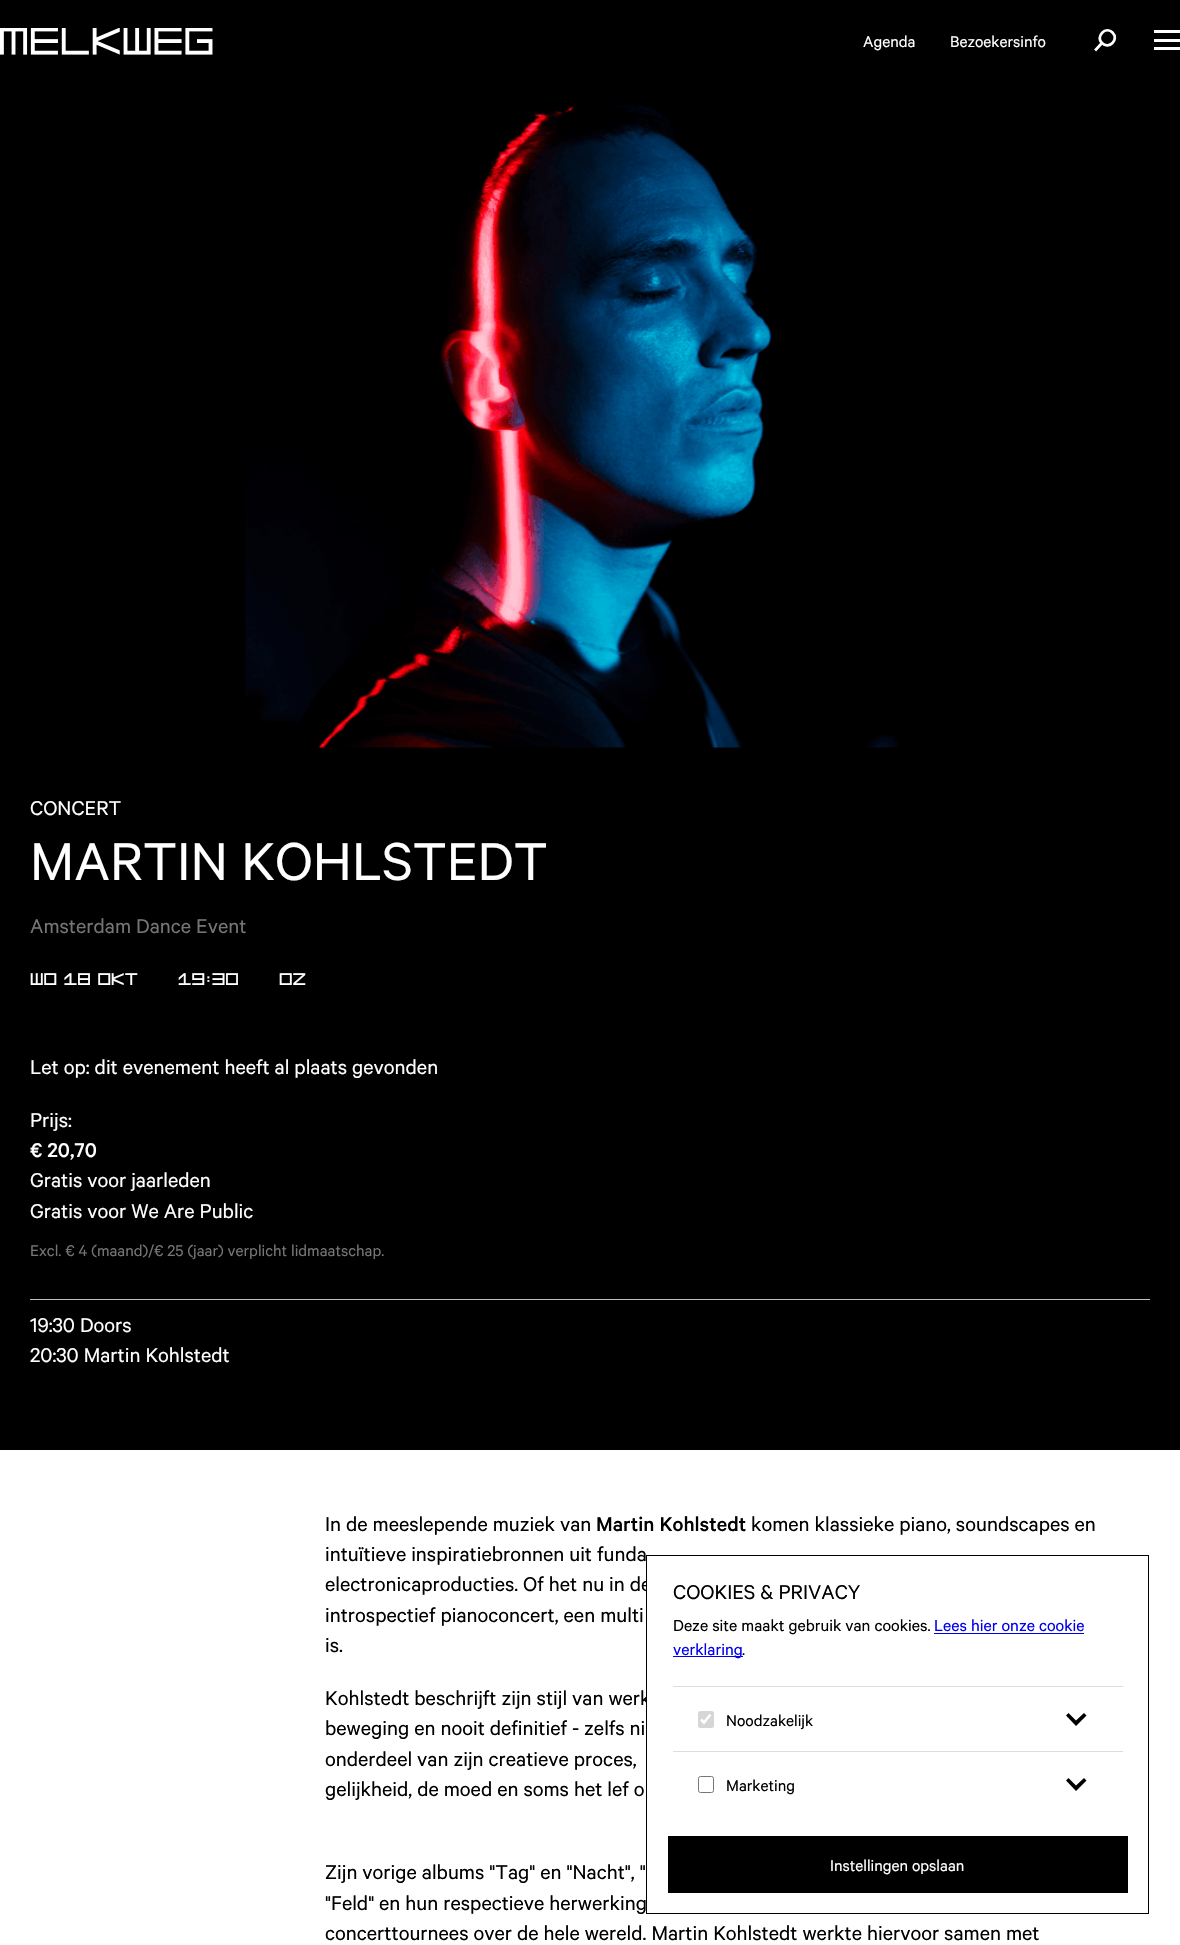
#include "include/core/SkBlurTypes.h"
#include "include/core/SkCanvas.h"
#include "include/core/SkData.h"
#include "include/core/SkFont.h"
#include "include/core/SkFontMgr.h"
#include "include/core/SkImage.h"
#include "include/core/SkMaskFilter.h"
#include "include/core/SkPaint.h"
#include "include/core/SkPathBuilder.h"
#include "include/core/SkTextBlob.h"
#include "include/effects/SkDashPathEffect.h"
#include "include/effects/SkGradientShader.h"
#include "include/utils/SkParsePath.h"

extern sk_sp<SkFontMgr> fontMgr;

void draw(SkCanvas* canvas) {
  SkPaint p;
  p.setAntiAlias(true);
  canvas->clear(SK_ColorWHITE);
  p.setColor(SK_ColorBLACK);
  canvas->drawRect(SkRect::MakeLTRB(0, 0, 1180, 84), p);
  canvas->drawImageRect(SkImages::DeferredFromEncodedData(SkData::MakeFromFileName("images/1.png")), SkRect::MakeLTRB(0, 28, 213, 55), SkSamplingOptions());
  p.setStyle(SkPaint::kStroke_Style);
  p.setStrokeWidth(2.7f);
  p.setColor(SK_ColorWHITE);
  canvas->drawPath(SkPathBuilder().moveTo(1112.5f, 32.5f).cubicTo(1119.5f, 39.5f, 1109, 50, 1102, 43).cubicTo(1095, 36.5f, 1106, 25.5f, 1112.5f, 32.5f).close().detach(), p);
  p.setStrokeCap(SkPaint::kSquare_Cap);
  canvas->drawPath(SkPathBuilder().moveTo(1101.5f, 43.5f).lineTo(1096, 49.5f).detach(), p);
  p.setStyle(SkPaint::kFill_Style);
  canvas->drawRect(SkRect::MakeLTRB(1154, 30, 1180, 33), p);
  canvas->drawRect(SkRect::MakeLTRB(1154, 39, 1180, 42), p);
  canvas->drawRect(SkRect::MakeLTRB(1154, 47, 1180, 50), p);
  p.setColor(SK_ColorBLACK);
  canvas->drawRect(SkRect::MakeLTRB(0, 747, 1180, 1450), p);
  canvas->drawImageRect(SkImages::DeferredFromEncodedData(SkData::MakeFromFileName("images/2.png")), SkRect::MakeLTRB(0, 84, 1180, 748), SkSamplingOptions());
  p.setColor(SkColorSetRGB(189, 189, 189));
  canvas->drawRect(SkRect::MakeLTRB(30, 1299, 1150, 1300), p);
  SkFont font1(fontMgr->matchFamilyStyle("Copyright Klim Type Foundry", SkFontStyle::Normal()), 17.5f);
  font1.setSubpixel(true);
  p.setColor(SK_ColorWHITE);
  canvas->drawString("Agenda", 863, 47, font1, p);
  canvas->drawString("Bezoekersinfo", 950, 47, font1, p);
  SkFont font2(fontMgr->matchFamilyStyle("Copyright Klim Type Foundry", SkFontStyle::Normal()), 22.5f);
  font2.setSubpixel(true);
  canvas->drawString("CONCERT", 30, 815, font2, p);
  SkFont font3(fontMgr->matchFamilyStyle("Copyright Klim Type Foundry", SkFontStyle::Normal()), 60);
  font3.setSubpixel(true);
  canvas->drawString("MARTIN KOHLSTEDT", 30, 880, font3, p);
  p.setColor(SkColorSetRGB(117, 117, 117));
  canvas->drawString("Amsterdam Dance Event", 30, 933, font2, p);
  SkFont font4(fontMgr->matchFamilyStyle("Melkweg", SkFontStyle::Normal()), 22.5f);
  font4.setSubpixel(true);
  p.setColor(SK_ColorWHITE);
  canvas->drawString("WO 18 OKT", 30, 985, font4, p);
  canvas->drawString("19:30", 178, 985, font4, p);
  canvas->drawString("OZ", 279, 985, font4, p);
  canvas->drawString("Let op: dit evenement heeft al plaats gevonden", 30, 1074, font2, p);
  canvas->drawString("Prijs:", 30, 1127, font2, p);
  SkFont font5(fontMgr->matchFamilyStyle("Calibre", SkFontStyle(500, SkFontStyle::kNormal_Width, SkFontStyle::kUpright_Slant)), 22.5f);
  font5.setSubpixel(true);
  canvas->drawString("€ 20,70", 30, 1157, font5, p);
  canvas->drawString("Gratis voor jaarleden", 30, 1187, font2, p);
  canvas->drawString("Gratis voor We Are Public", 30, 1218, font2, p);
  p.setColor(SkColorSetRGB(117, 117, 117));
  canvas->drawString("Excl. € 4 (maand)/€ 25 (jaar) verplicht lidmaatschap.", 30, 1256, font1, p);
  p.setColor(SK_ColorWHITE);
  canvas->drawString("19:30 Doors", 30, 1332, font2, p);
  canvas->drawString("20:30 Martin Kohlstedt", 30, 1362, font2, p);
  p.setColor(SK_ColorBLACK);
  canvas->drawString("In de meeslepende muziek van", 325, 1531, font2, p);
  canvas->drawString("Martin Kohlstedt", 596, 1531, font5, p);
  canvas->drawString("komen klassieke piano, soundscapes en", 751, 1531, font2, p);
  canvas->drawString("intuïtieve inspiratiebronnen uit funda", 325, 1561, font2, p);
  canvas->drawString("electronicaproducties. Of het nu in de", 325, 1591, font2, p);
  canvas->drawString("introspectief pianoconcert, een multi", 325, 1622, font2, p);
  canvas->drawString("is.", 325, 1652, font2, p);
  canvas->drawString("Kohlstedt beschrijft zijn stijl van werk", 325, 1705, font2, p);
  canvas->drawString("beweging en nooit definitief - zelfs ni", 325, 1735, font2, p);
  canvas->drawString("onderdeel van zijn creatieve proces,", 325, 1766, font2, p);
  canvas->drawString("gelijkheid, de moed en soms het lef o", 325, 1796, font2, p);
  canvas->drawString("Zijn vorige albums \"Tag\" en \"Nacht\", \"", 325, 1879, font2, p);
  canvas->drawString("\"Feld\" en hun respectieve herwerking", 325, 1910, font2, p);
  canvas->drawString("concerttournees over de hele wereld. Martin Kohlstedt werkte hiervoor samen met", 325, 1940, font2, p);
  p.setColor(SK_ColorWHITE);
  canvas->drawRect(SkRect::MakeLTRB(647, 1580, 651, 1705), p);
  p.setStyle(SkPaint::kStroke_Style);
  p.setStrokeWidth(1);
  p.setStrokeCap(SkPaint::kButt_Cap);
  p.setColor(SK_ColorBLACK);
  canvas->drawRect(SkRect::MakeLTRB(646.5f, 1555.5f, 1148.5f, 1913.5f), p);
  p.setStyle(SkPaint::kFill_Style);
  canvas->drawString("COOKIES & PRIVACY", 673, 1599, font2, p);
  SkFont font6(fontMgr->matchFamilyStyle("Copyright Klim Type Foundry", SkFontStyle::Normal()), 18);
  font6.setSubpixel(true);
  canvas->drawString("Deze site maakt gebruik van cookies.", 673, 1631, font6, p);
  p.setColor(SkColorSetRGB(0, 0, 238));
  canvas->drawString("Lees hier onze cookie", 934, 1631, font6, p);
  canvas->drawRect(SkRect::MakeLTRB(934, 1633, 1084, 1634), p);
  canvas->drawRect(SkRect::MakeLTRB(673, 1656, 743, 1657), p);
  canvas->drawString("verklaring", 673, 1655, font6, p);
  p.setColor(SK_ColorBLACK);
  canvas->drawString(".", 742, 1655, font6, p);
  p.setColor(SkColorSetRGB(221, 221, 221));
  canvas->drawRect(SkRect::MakeLTRB(673, 1686, 1123, 1687), p);
  p.setColor(SkColorSetRGB(214, 214, 214));
  canvas->drawRoundRect(SkRect::MakeLTRB(698, 1711, 714, 1728), 2.5f, 2.5f, p);
  p.setStyle(SkPaint::kStroke_Style);
  p.setStrokeWidth(2.6f);
  p.setColor(SK_ColorWHITE);
  canvas->drawPath(SkPathBuilder().moveTo(701, 1719.5f).lineTo(704, 1722.5f).lineTo(710.5f, 1714.5f).detach(), p);
  p.setStyle(SkPaint::kFill_Style);
  p.setColor(SK_ColorBLACK);
  canvas->drawString("Noodzakelijk", 726, 1726, font1, p);
  canvas->drawPath(SkPathBuilder().moveTo(1084, 1713).lineTo(1086.5f, 1715.5f).lineTo(1076, 1726).lineTo(1066, 1715.5f).lineTo(1068.5f, 1713).lineTo(1076, 1720.5f).close().detach(), p);
  p.setColor(SkColorSetRGB(221, 221, 221));
  canvas->drawRect(SkRect::MakeLTRB(673, 1751, 1123, 1752), p);
  p.setStyle(SkPaint::kStroke_Style);
  p.setStrokeWidth(1);
  p.setColor(SkColorSetRGB(118, 118, 118));
  canvas->drawRoundRect(SkRect::MakeLTRB(698.5f, 1776.5f, 713.5f, 1792.5f), 2, 2, p);
  p.setStyle(SkPaint::kFill_Style);
  p.setColor(SK_ColorBLACK);
  canvas->drawString("Marketing", 726, 1791, font1, p);
  canvas->drawPath(SkPathBuilder().moveTo(1084, 1778).lineTo(1086.5f, 1780.5f).lineTo(1076, 1791).lineTo(1066, 1780.5f).lineTo(1068.5f, 1778).lineTo(1076, 1785.5f).close().detach(), p);
  canvas->drawRect(SkRect::MakeLTRB(668, 1836, 1128, 1893), p);
  p.setColor(SK_ColorWHITE);
  canvas->drawString("Instellingen opslaan", 830, 1871, font1, p);
}
